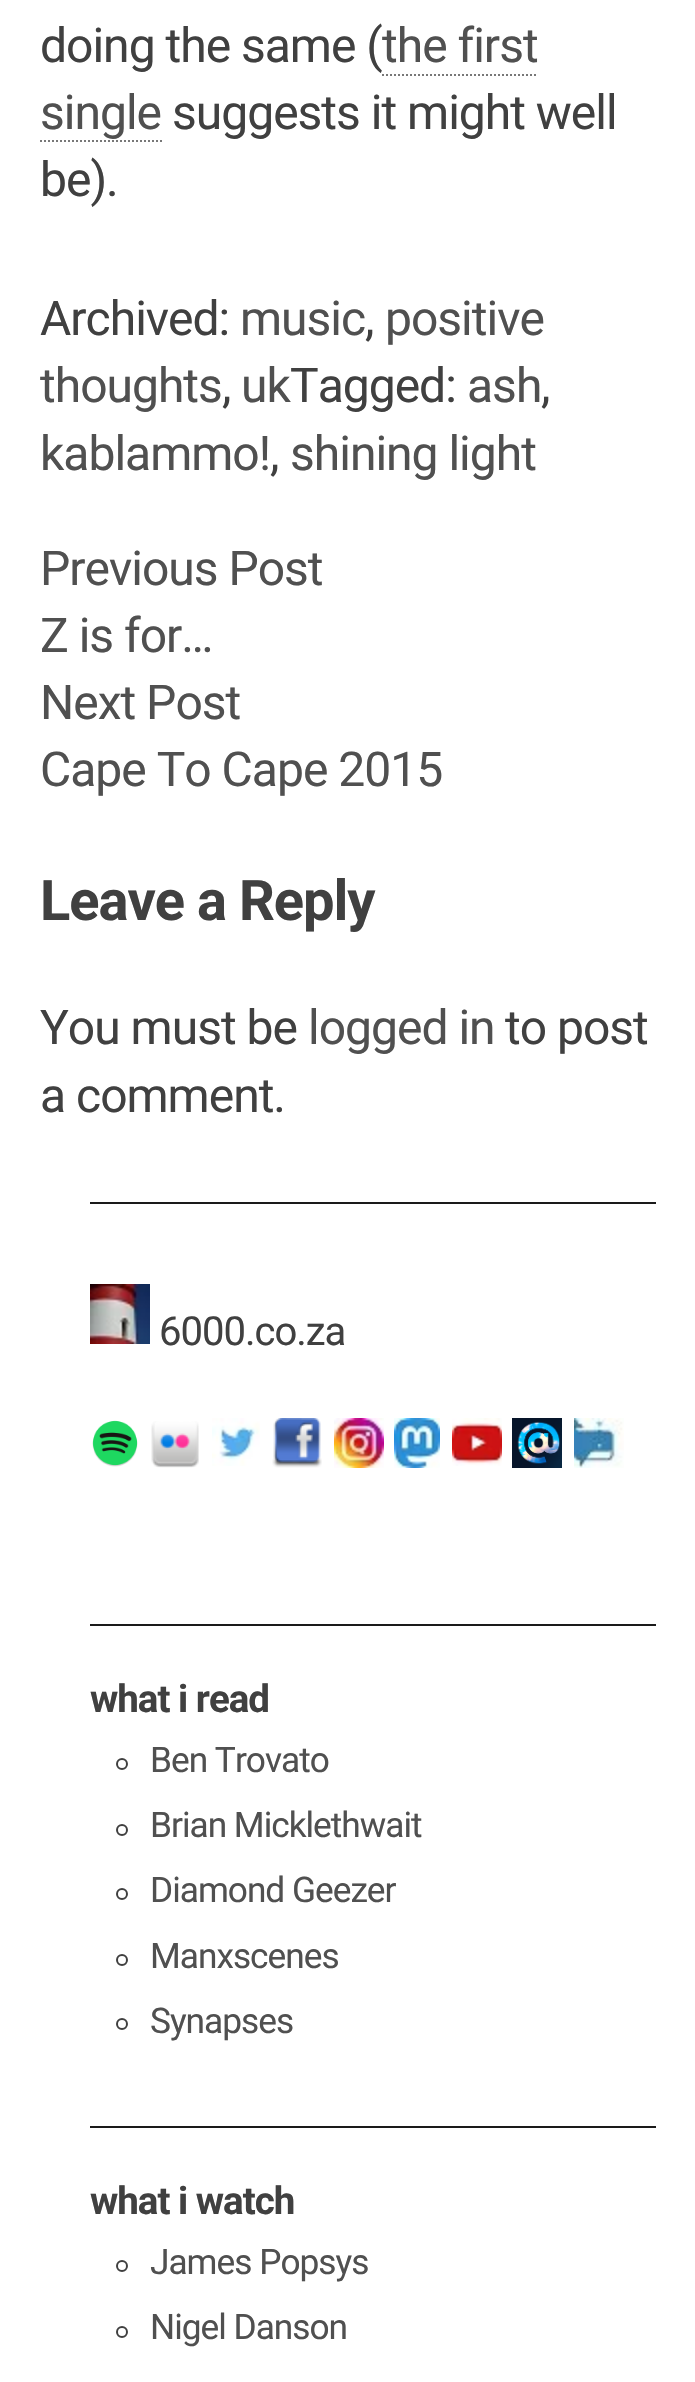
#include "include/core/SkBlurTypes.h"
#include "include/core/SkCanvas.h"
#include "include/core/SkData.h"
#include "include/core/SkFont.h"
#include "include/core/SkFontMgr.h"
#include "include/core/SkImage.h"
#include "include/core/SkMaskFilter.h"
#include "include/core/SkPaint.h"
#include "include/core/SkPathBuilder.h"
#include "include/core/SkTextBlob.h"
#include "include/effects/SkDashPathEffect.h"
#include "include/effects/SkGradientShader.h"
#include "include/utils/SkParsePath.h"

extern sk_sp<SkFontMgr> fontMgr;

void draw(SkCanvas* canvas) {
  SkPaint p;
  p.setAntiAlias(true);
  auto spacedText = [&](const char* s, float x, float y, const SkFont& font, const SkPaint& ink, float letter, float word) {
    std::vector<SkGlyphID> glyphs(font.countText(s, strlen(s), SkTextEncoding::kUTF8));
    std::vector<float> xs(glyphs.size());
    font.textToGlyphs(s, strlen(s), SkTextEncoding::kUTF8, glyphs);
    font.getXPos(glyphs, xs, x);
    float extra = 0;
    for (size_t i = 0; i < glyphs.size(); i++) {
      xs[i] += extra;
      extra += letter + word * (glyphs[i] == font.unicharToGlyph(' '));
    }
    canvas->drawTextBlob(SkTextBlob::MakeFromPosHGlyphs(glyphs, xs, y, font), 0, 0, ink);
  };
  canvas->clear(SK_ColorWHITE);
  p.setStyle(SkPaint::kStroke_Style);
  p.setStrokeWidth(2);
  p.setColor(SkColorSetRGB(120, 120, 120));
  p.setPathEffect(SkDashPathEffect::Make({{2, 2}}, 0));
  canvas->drawPath(SkPathBuilder().moveTo(382, 75).lineTo(538, 75).detach(), p);
  p.setPathEffect(nullptr);
  p.setPathEffect(SkDashPathEffect::Make({{2, 2}}, 0));
  canvas->drawPath(SkPathBuilder().moveTo(40, 141).lineTo(162, 141).detach(), p);
  p.setPathEffect(nullptr);
  p.setStyle(SkPaint::kFill_Style);
  p.setColor(SkColorSetRGB(26, 26, 26));
  canvas->drawRect(SkRect::MakeLTRB(90, 1202, 656, 1204), p);
  canvas->drawImageRect(SkImages::DeferredFromEncodedData(SkData::MakeFromFileName("images/1.png")), SkRect::MakeLTRB(90, 1284, 150, 1344), SkSamplingOptions());
  canvas->drawImageRect(SkImages::DeferredFromEncodedData(SkData::MakeFromFileName("images/2.png")), SkRect::MakeLTRB(92, 1420, 138, 1467), SkSamplingOptions());
  canvas->drawImageRect(SkImages::DeferredFromEncodedData(SkData::MakeFromFileName("images/3.png")), SkRect::MakeLTRB(151, 1421, 199, 1468), SkSamplingOptions());
  canvas->drawImageRect(SkImages::DeferredFromEncodedData(SkData::MakeFromFileName("images/4.png")), SkRect::MakeLTRB(212, 1418, 260, 1466), SkSamplingOptions());
  canvas->drawImageRect(SkImages::DeferredFromEncodedData(SkData::MakeFromFileName("images/5.png")), SkRect::MakeLTRB(272, 1418, 322, 1468), SkSamplingOptions());
  canvas->drawImageRect(SkImages::DeferredFromEncodedData(SkData::MakeFromFileName("images/6.png")), SkRect::MakeLTRB(334, 1418, 384, 1468), SkSamplingOptions());
  canvas->drawImageRect(SkImages::DeferredFromEncodedData(SkData::MakeFromFileName("images/7.png")), SkRect::MakeLTRB(394, 1418, 440, 1468), SkSamplingOptions());
  canvas->drawImageRect(SkImages::DeferredFromEncodedData(SkData::MakeFromFileName("images/8.png")), SkRect::MakeLTRB(452, 1418, 502, 1466), SkSamplingOptions());
  canvas->drawImageRect(SkImages::DeferredFromEncodedData(SkData::MakeFromFileName("images/9.png")), SkRect::MakeLTRB(512, 1418, 562, 1468), SkSamplingOptions());
  canvas->drawImageRect(SkImages::DeferredFromEncodedData(SkData::MakeFromFileName("images/10.png")), SkRect::MakeLTRB(574, 1418, 624, 1468), SkSamplingOptions());
  canvas->drawRect(SkRect::MakeLTRB(90, 1624, 656, 1626), p);
  p.setStyle(SkPaint::kStroke_Style);
  p.setColor(SkColorSetRGB(64, 64, 64));
  canvas->drawCircle(122, 1764, 5, p);
  canvas->drawCircle(122, 1830, 5, p);
  canvas->drawCircle(122, 1894, 5, p);
  canvas->drawCircle(122, 1960, 5, p);
  canvas->drawCircle(122, 2024, 5, p);
  p.setStyle(SkPaint::kFill_Style);
  p.setColor(SkColorSetRGB(26, 26, 26));
  canvas->drawRect(SkRect::MakeLTRB(90, 2126, 656, 2128), p);
  p.setStyle(SkPaint::kStroke_Style);
  p.setColor(SkColorSetRGB(64, 64, 64));
  canvas->drawCircle(122, 2266, 5, p);
  canvas->drawCircle(122, 2332, 5, p);
  SkFont font1(fontMgr->matchFamilyStyle("Roboto", SkFontStyle::Normal()), 48);
  font1.setSubpixel(true);
  p.setStyle(SkPaint::kFill_Style);
  spacedText("doing the same (", 40, 62, font1, p, -1, 0);
  p.setColor(SkColorSetRGB(80, 80, 80));
  spacedText("the first", 382, 62, font1, p, -1, 0);
  spacedText("single", 40, 129, font1, p, -1, 0);
  p.setColor(SkColorSetRGB(64, 64, 64));
  spacedText("suggests it might well", 172, 129, font1, p, -1, 0);
  spacedText("be).", 40, 196, font1, p, -1, 0);
  spacedText("Archived:", 40, 335, font1, p, -1, 0);
  p.setColor(SkColorSetRGB(80, 80, 80));
  spacedText("music", 240, 335, font1, p, -1, 0);
  p.setColor(SkColorSetRGB(64, 64, 64));
  spacedText(",", 365, 335, font1, p, -1, 0);
  p.setColor(SkColorSetRGB(80, 80, 80));
  spacedText("positive", 385, 335, font1, p, -1, 0);
  spacedText("thoughts", 40, 402, font1, p, -1, 0);
  p.setColor(SkColorSetRGB(64, 64, 64));
  spacedText(",", 222, 402, font1, p, -1, 0);
  p.setColor(SkColorSetRGB(80, 80, 80));
  spacedText("uk", 241, 402, font1, p, -1, 0);
  p.setColor(SkColorSetRGB(64, 64, 64));
  spacedText("Tagged:", 290, 402, font1, p, -1, 0);
  p.setColor(SkColorSetRGB(80, 80, 80));
  spacedText("ash", 467, 402, font1, p, -1, 0);
  p.setColor(SkColorSetRGB(64, 64, 64));
  spacedText(",", 541, 402, font1, p, -1, 0);
  p.setColor(SkColorSetRGB(80, 80, 80));
  spacedText("kablammo!", 40, 470, font1, p, -1, 0);
  p.setColor(SkColorSetRGB(64, 64, 64));
  spacedText(",", 270, 470, font1, p, -1, 0);
  p.setColor(SkColorSetRGB(80, 80, 80));
  spacedText("shining light", 290, 470, font1, p, -1, 0);
  spacedText("Previous Post", 40, 585, font1, p, -1, 0);
  spacedText("Z is for…", 40, 652, font1, p, -1, 0);
  spacedText("Next Post", 40, 719, font1, p, -1, 0);
  spacedText("Cape To Cape 2015", 40, 786, font1, p, -1, 0);
  SkFont font2(fontMgr->matchFamilyStyle("Roboto", SkFontStyle::Bold()), 56);
  font2.setSubpixel(true);
  p.setColor(SkColorSetRGB(64, 64, 64));
  spacedText("Leave a Reply", 40, 920, font2, p, -1, 0);
  spacedText("You must be", 40, 1044, font1, p, -1, 0);
  p.setColor(SkColorSetRGB(80, 80, 80));
  spacedText("logged in", 308, 1044, font1, p, -1, 0);
  p.setColor(SkColorSetRGB(64, 64, 64));
  spacedText("to post", 505, 1044, font1, p, -1, 0);
  spacedText("a comment.", 40, 1112, font1, p, -1, 0);
  SkFont font3(fontMgr->matchFamilyStyle("Roboto", SkFontStyle::Normal()), 40);
  font3.setSubpixel(true);
  spacedText("6000.co.za", 159, 1345, font3, p, -1, 0);
  SkFont font4(fontMgr->matchFamilyStyle("Roboto", SkFontStyle::Bold()), 38.5f);
  font4.setSubpixel(true);
  spacedText("what i read", 90, 1712, font4, p, -1, 0);
  SkFont font5(fontMgr->matchFamilyStyle("Roboto", SkFontStyle::Normal()), 35.25f);
  font5.setSubpixel(true);
  p.setColor(SkColorSetRGB(80, 80, 80));
  spacedText("Ben Trovato", 150, 1772, font5, p, -1, 0);
  spacedText("Brian Micklethwait", 150, 1837, font5, p, -1, 0);
  spacedText("Diamond Geezer", 150, 1902, font5, p, -1, 0);
  spacedText("Manxscenes", 150, 1968, font5, p, -1, 0);
  spacedText("Synapses", 150, 2033, font5, p, -1, 0);
  p.setColor(SkColorSetRGB(64, 64, 64));
  spacedText("what i watch", 90, 2214, font4, p, -1, 0);
  p.setColor(SkColorSetRGB(80, 80, 80));
  spacedText("James Popsys", 150, 2274, font5, p, -1, 0);
  spacedText("Nigel Danson", 150, 2339, font5, p, -1, 0);
}
